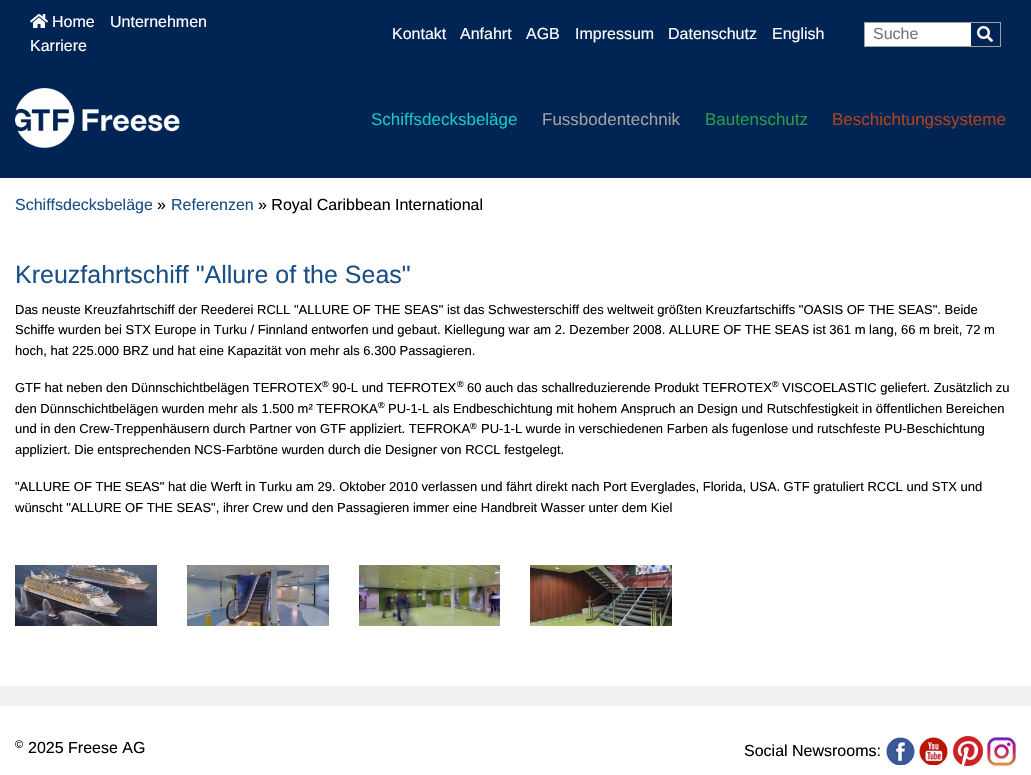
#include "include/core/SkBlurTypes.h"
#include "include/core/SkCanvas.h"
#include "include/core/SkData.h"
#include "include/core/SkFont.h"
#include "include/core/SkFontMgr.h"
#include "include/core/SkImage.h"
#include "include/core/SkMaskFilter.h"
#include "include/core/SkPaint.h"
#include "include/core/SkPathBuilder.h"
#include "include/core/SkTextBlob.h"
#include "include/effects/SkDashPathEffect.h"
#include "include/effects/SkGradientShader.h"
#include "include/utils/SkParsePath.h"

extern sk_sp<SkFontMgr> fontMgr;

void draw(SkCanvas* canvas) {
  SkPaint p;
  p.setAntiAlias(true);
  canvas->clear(SK_ColorWHITE);
  p.setColor(SkColorSetRGB(0, 37, 84));
  canvas->drawRect(SkRect::MakeLTRB(0, 0, 1031, 178), p);
  canvas->drawImageRect(SkImages::DeferredFromEncodedData(SkData::MakeFromFileName("images/1.png")), SkRect::MakeLTRB(30, 14, 48, 28), SkSamplingOptions());
  p.setColor(SK_ColorWHITE);
  canvas->drawRect(SkRect::MakeLTRB(865, 23, 971, 46), p);
  p.setStyle(SkPaint::kStroke_Style);
  p.setStrokeWidth(1);
  p.setColor(SkColorSetRGB(161, 161, 161));
  canvas->drawRect(SkRect::MakeLTRB(864.5f, 22.5f, 1000.5f, 46.5f), p);
  canvas->drawImageRect(SkImages::DeferredFromEncodedData(SkData::MakeFromFileName("images/2.png")), SkRect::MakeLTRB(977, 26, 993, 42), SkSamplingOptions());
  canvas->drawImageRect(SkImages::DeferredFromEncodedData(SkData::MakeFromFileName("images/3.png")), SkRect::MakeLTRB(15, 88, 180, 148), SkSamplingOptions());
  p.setStyle(SkPaint::kFill_Style);
  p.setColor(SkColorSetRGB(241, 241, 241));
  canvas->drawRect(SkRect::MakeLTRB(0, 686, 1031, 706), p);
  canvas->drawImageRect(SkImages::DeferredFromEncodedData(SkData::MakeFromFileName("images/4.png")), SkRect::MakeLTRB(15, 565, 157, 626), SkSamplingOptions());
  canvas->drawImageRect(SkImages::DeferredFromEncodedData(SkData::MakeFromFileName("images/5.png")), SkRect::MakeLTRB(187, 565, 329, 626), SkSamplingOptions());
  canvas->drawImageRect(SkImages::DeferredFromEncodedData(SkData::MakeFromFileName("images/6.png")), SkRect::MakeLTRB(359, 565, 500, 626), SkSamplingOptions());
  canvas->drawImageRect(SkImages::DeferredFromEncodedData(SkData::MakeFromFileName("images/7.png")), SkRect::MakeLTRB(530, 565, 672, 626), SkSamplingOptions());
  canvas->drawImageRect(SkImages::DeferredFromEncodedData(SkData::MakeFromFileName("images/8.png")), SkRect::MakeLTRB(886, 737, 915, 765), SkSamplingOptions());
  canvas->drawImageRect(SkImages::DeferredFromEncodedData(SkData::MakeFromFileName("images/9.png")), SkRect::MakeLTRB(919, 737, 948, 765), SkSamplingOptions());
  canvas->drawImageRect(SkImages::DeferredFromEncodedData(SkData::MakeFromFileName("images/10.png")), SkRect::MakeLTRB(953, 736, 983, 766), SkSamplingOptions());
  canvas->drawImageRect(SkImages::DeferredFromEncodedData(SkData::MakeFromFileName("images/11.png")), SkRect::MakeLTRB(987, 737, 1016, 766), SkSamplingOptions());
  SkFont font1(fontMgr->matchFamilyStyle("Liberation Sans", SkFontStyle::Normal()), 16);
  font1.setSubpixel(true);
  p.setColor(SK_ColorWHITE);
  canvas->drawString("Home", 52, 27, font1, p);
  canvas->drawString("Unternehmen", 110, 27, font1, p);
  canvas->drawString("Karriere", 30, 51, font1, p);
  canvas->drawString("Kontakt", 392, 39, font1, p);
  canvas->drawString("Anfahrt", 460, 39, font1, p);
  canvas->drawString("AGB", 526, 39, font1, p);
  canvas->drawString("Impressum", 575, 39, font1, p);
  canvas->drawString("Datenschutz", 668, 39, font1, p);
  canvas->drawString("English", 772, 39, font1, p);
  p.setColor(SkColorSetRGB(117, 117, 117));
  canvas->drawString("Suche", 873, 39, font1, p);
  SkFont font2(fontMgr->matchFamilyStyle("Liberation Sans", SkFontStyle::Normal()), 17);
  font2.setSubpixel(true);
  p.setColor(SkColorSetRGB(25, 197, 195));
  canvas->drawString("Schiffsdecksbeläge", 371, 125, font2, p);
  p.setColor(SkColorSetRGB(160, 160, 160));
  canvas->drawString("Fussbodentechnik", 542, 125, font2, p);
  p.setColor(SkColorSetRGB(37, 154, 77));
  canvas->drawString("Bautenschutz", 705, 125, font2, p);
  p.setColor(SkColorSetRGB(169, 67, 30));
  canvas->drawString("Beschichtungssysteme", 832, 125, font2, p);
  p.setColor(SkColorSetRGB(27, 80, 135));
  canvas->drawString("Schiffsdecksbeläge", 15, 210, font1, p);
  p.setColor(SK_ColorBLACK);
  canvas->drawString("»", 157, 210, font1, p);
  p.setColor(SkColorSetRGB(27, 80, 135));
  canvas->drawString("Referenzen", 171, 210, font1, p);
  p.setColor(SK_ColorBLACK);
  canvas->drawString("» Royal Caribbean International", 258, 210, font1, p);
  SkFont font3(fontMgr->matchFamilyStyle("Liberation Sans", SkFontStyle::Normal()), 25);
  font3.setSubpixel(true);
  p.setColor(SkColorSetRGB(27, 80, 135));
  canvas->drawString("Kreuzfahrtschiff \"Allure of the Seas\"", 15, 283, font3, p);
  SkFont font4(fontMgr->matchFamilyStyle("Liberation Sans", SkFontStyle::Normal()), 13);
  font4.setSubpixel(true);
  p.setColor(SK_ColorBLACK);
  canvas->drawString("Das neuste Kreuzfahrtschiff der Reederei RCLL \"ALLURE OF THE SEAS\" ist das Schwesterschiff des weltweit größten Kreuzfartschiffs \"OASIS OF THE SEAS\". Beide", 15, 314, font4, p);
  canvas->drawString("Schiffe wurden bei STX Europe in Turku / Finnland entworfen und gebaut. Kiellegung war am 2. Dezember 2008. ALLURE OF THE SEAS ist 361 m lang, 66 m breit, 72 m", 15, 334, font4, p);
  canvas->drawString("hoch, hat 225.000 BRZ und hat eine Kapazität von mehr als 6.300 Passagieren.", 15, 355, font4, p);
  canvas->drawString("GTF hat neben den Dünnschichtbelägen TEFROTEX", 15, 392, font4, p);
  SkFont font5(fontMgr->matchFamilyStyle("Liberation Sans", SkFontStyle::Normal()), 9);
  font5.setSubpixel(true);
  canvas->drawString("®", 322, 387, font5, p);
  canvas->drawString("90-L und TEFROTEX", 332, 392, font4, p);
  canvas->drawString("®", 457, 387, font5, p);
  canvas->drawString("60 auch das schallreduzierende Produkt TEFROTEX", 467, 392, font4, p);
  canvas->drawString("®", 772, 387, font5, p);
  canvas->drawString("VISCOELASTIC geliefert. Zusätzlich zu", 782, 392, font4, p);
  canvas->drawString("den Dünnschichtbelägen wurden mehr als 1.500 m² TEFROKA", 15, 413, font4, p);
  canvas->drawString("®", 378, 408, font5, p);
  canvas->drawString("PU-1-L als Endbeschichtung mit hohem Anspruch an Design und Rutschfestigkeit in öffentlichen Bereichen", 388, 413, font4, p);
  canvas->drawString("und in den Crew-Treppenhäusern durch Partner von GTF appliziert. TEFROKA", 15, 433, font4, p);
  canvas->drawString("®", 470, 429, font5, p);
  canvas->drawString("PU-1-L wurde in verschiedenen Farben als fugenlose und rutschfeste PU-Beschichtung", 481, 433, font4, p);
  canvas->drawString("appliziert. Die entsprechenden NCS-Farbtöne wurden durch die Designer von RCCL festgelegt.", 15, 454, font4, p);
  canvas->drawString("\"ALLURE OF THE SEAS\" hat die Werft in Turku am 29. Oktober 2010 verlassen und fährt direkt nach Port Everglades, Florida, USA. GTF gratuliert RCCL und STX und", 15, 491, font4, p);
  canvas->drawString("wünscht \"ALLURE OF THE SEAS\", ihrer Crew und den Passagieren immer eine Handbreit Wasser unter dem Kiel", 15, 512, font4, p);
  SkFont font6(fontMgr->matchFamilyStyle("Liberation Sans", SkFontStyle::Normal()), 11);
  font6.setSubpixel(true);
  canvas->drawString("©", 15, 748, font6, p);
  canvas->drawString("2025 Freese AG", 28, 753, font1, p);
  canvas->drawString("Social Newsrooms:", 744, 756, font1, p);
}
